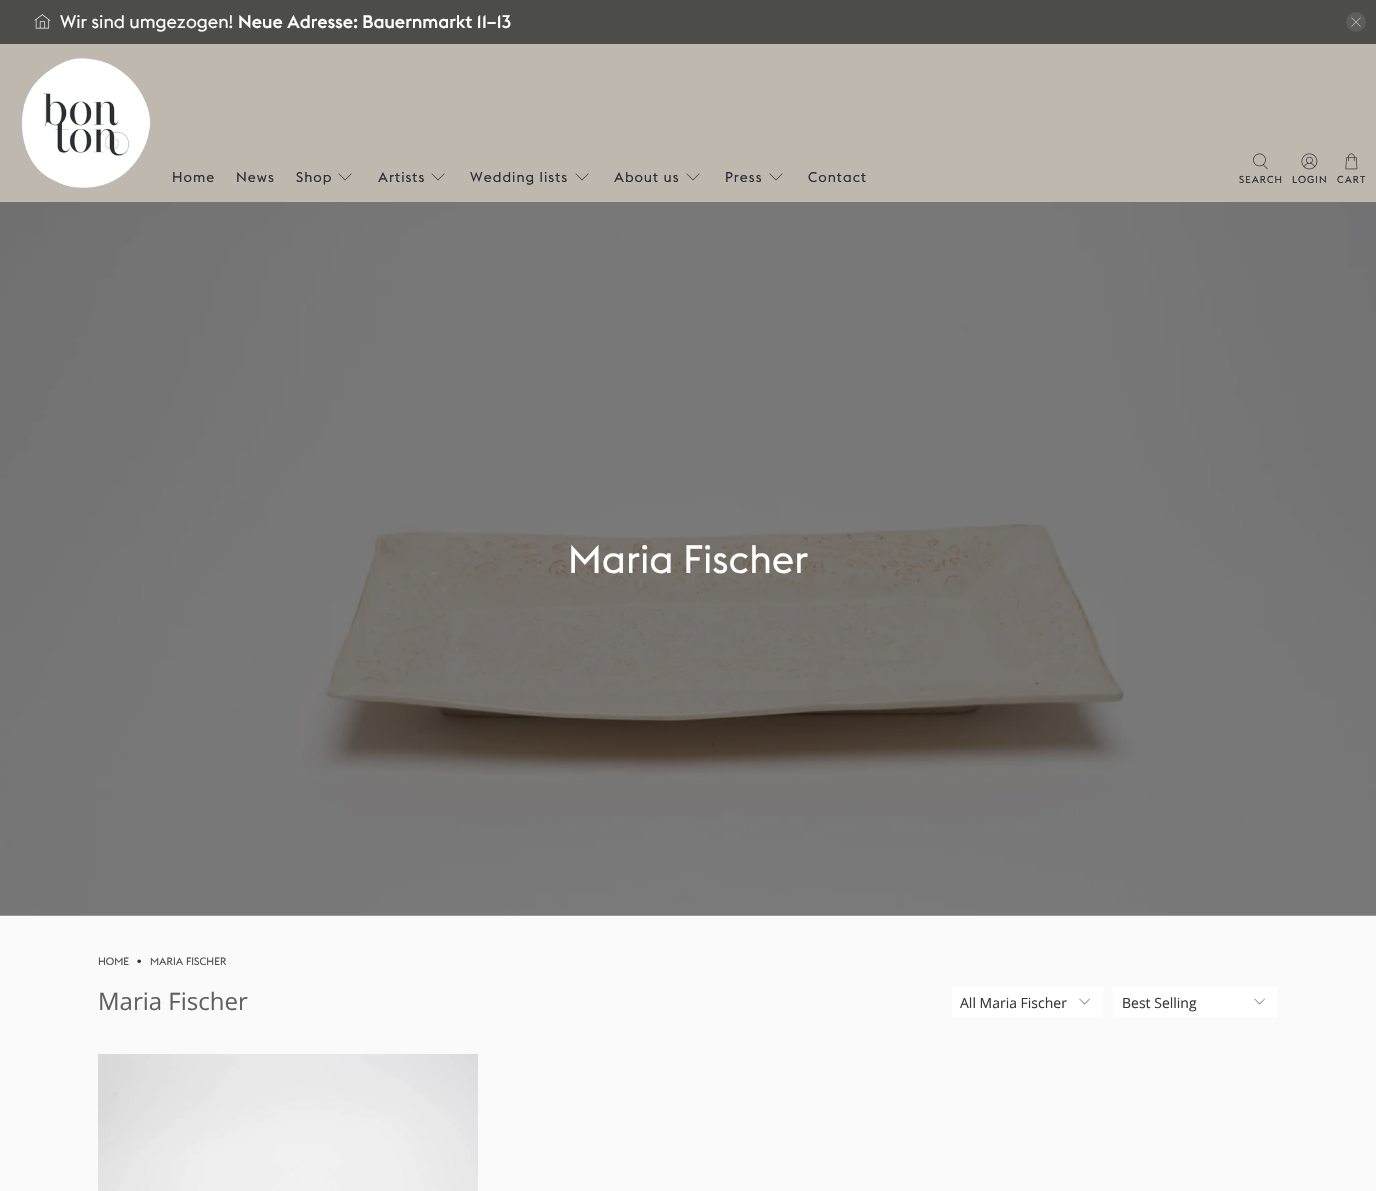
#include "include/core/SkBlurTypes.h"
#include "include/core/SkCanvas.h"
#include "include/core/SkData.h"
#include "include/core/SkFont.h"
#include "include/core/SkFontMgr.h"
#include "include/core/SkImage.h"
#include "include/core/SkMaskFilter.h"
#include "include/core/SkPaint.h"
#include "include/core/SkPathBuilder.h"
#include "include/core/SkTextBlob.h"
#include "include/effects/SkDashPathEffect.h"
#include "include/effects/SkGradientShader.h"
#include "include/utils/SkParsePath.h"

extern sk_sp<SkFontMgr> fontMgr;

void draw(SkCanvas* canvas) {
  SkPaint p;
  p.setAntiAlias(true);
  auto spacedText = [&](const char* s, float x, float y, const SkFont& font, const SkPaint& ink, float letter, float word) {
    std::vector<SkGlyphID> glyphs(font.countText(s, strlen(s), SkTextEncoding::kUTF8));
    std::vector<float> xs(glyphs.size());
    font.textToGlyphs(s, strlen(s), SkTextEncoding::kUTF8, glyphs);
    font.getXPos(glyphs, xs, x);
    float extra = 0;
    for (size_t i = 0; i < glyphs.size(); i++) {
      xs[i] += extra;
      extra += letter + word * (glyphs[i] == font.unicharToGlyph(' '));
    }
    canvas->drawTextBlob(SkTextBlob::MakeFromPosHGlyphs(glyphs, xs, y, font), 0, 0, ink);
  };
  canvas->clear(SkColorSetRGB(250, 250, 250));
  p.setColor(SkColorSetRGB(76, 76, 74));
  canvas->drawRect(SkRect::MakeLTRB(0, 0, 1376, 44), p);
  canvas->drawImageRect(SkImages::DeferredFromEncodedData(SkData::MakeFromFileName("images/1.png")), SkRect::MakeLTRB(34, 14, 51, 29), SkSamplingOptions());
  p.setColor(SkColorSetRGB(93, 93, 92));
  canvas->drawCircle(1356, 22, 10, p);
  canvas->drawImageRect(SkImages::DeferredFromEncodedData(SkData::MakeFromFileName("images/2.png")), SkRect::MakeLTRB(1351, 17, 1361, 27), SkSamplingOptions());
  p.setColor(SkColorSetRGB(190, 184, 175));
  canvas->drawRect(SkRect::MakeLTRB(0, 44, 1376, 202), p);
  canvas->drawImageRect(SkImages::DeferredFromEncodedData(SkData::MakeFromFileName("images/3.png")), SkRect::MakeLTRB(21, 58, 151, 188), SkSamplingOptions());
  canvas->drawImageRect(SkImages::DeferredFromEncodedData(SkData::MakeFromFileName("images/4.png")), SkRect::MakeLTRB(338, 173, 352, 181), SkSamplingOptions());
  canvas->drawImageRect(SkImages::DeferredFromEncodedData(SkData::MakeFromFileName("images/4.png")), SkRect::MakeLTRB(431, 173, 445, 181), SkSamplingOptions());
  canvas->drawImageRect(SkImages::DeferredFromEncodedData(SkData::MakeFromFileName("images/4.png")), SkRect::MakeLTRB(575, 173, 589, 181), SkSamplingOptions());
  canvas->drawImageRect(SkImages::DeferredFromEncodedData(SkData::MakeFromFileName("images/4.png")), SkRect::MakeLTRB(686, 173, 700, 181), SkSamplingOptions());
  canvas->drawImageRect(SkImages::DeferredFromEncodedData(SkData::MakeFromFileName("images/4.png")), SkRect::MakeLTRB(769, 173, 783, 181), SkSamplingOptions());
  canvas->drawImageRect(SkImages::DeferredFromEncodedData(SkData::MakeFromFileName("images/5.png")), SkRect::MakeLTRB(1253, 153, 1268, 170), SkSamplingOptions());
  canvas->drawImageRect(SkImages::DeferredFromEncodedData(SkData::MakeFromFileName("images/6.png")), SkRect::MakeLTRB(1301, 153, 1318, 170), SkSamplingOptions());
  canvas->drawImageRect(SkImages::DeferredFromEncodedData(SkData::MakeFromFileName("images/7.png")), SkRect::MakeLTRB(1345, 153, 1358, 170), SkSamplingOptions());
  canvas->drawImageRect(SkImages::DeferredFromEncodedData(SkData::MakeFromFileName("images/8.png")), SkRect::MakeLTRB(0, 202, 1376, 916), SkSamplingOptions());
  p.setColor(SkColorSetRGB(43, 46, 52));
  canvas->drawCircle(139.2f, 961.2f, 1.8f, p);
  p.setColor(SK_ColorWHITE);
  canvas->drawRect(SkRect::MakeLTRB(952, 987, 1103, 1018), p);
  canvas->drawImageRect(SkImages::DeferredFromEncodedData(SkData::MakeFromFileName("images/9.png")), SkRect::MakeLTRB(1079, 998, 1090, 1005), SkSamplingOptions());
  canvas->drawRect(SkRect::MakeLTRB(1113, 987, 1278, 1018), p);
  canvas->drawImageRect(SkImages::DeferredFromEncodedData(SkData::MakeFromFileName("images/9.png")), SkRect::MakeLTRB(1254, 998, 1265, 1005), SkSamplingOptions());
  canvas->drawImageRect(SkImages::DeferredFromEncodedData(SkData::MakeFromFileName("images/10.png")), SkRect::MakeLTRB(98, 1054, 478, 1191), SkSamplingOptions());
  SkFont font1(fontMgr->matchFamilyStyle("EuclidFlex", SkFontStyle::Normal()), 18);
  font1.setSubpixel(true);
  canvas->drawString("Wir sind umgezogen!", 60, 28, font1, p);
  SkFont font2(fontMgr->matchFamilyStyle("EuclidFlex", SkFontStyle(500, SkFontStyle::kNormal_Width, SkFontStyle::kUpright_Slant)), 18);
  font2.setSubpixel(true);
  canvas->drawString("Neue Adresse: Bauernmarkt 11–13", 238, 28, font2, p);
  SkFont font3(fontMgr->matchFamilyStyle("EuclidFlex", SkFontStyle::Normal()), 14);
  font3.setSubpixel(true);
  p.setColor(SkColorSetRGB(43, 46, 52));
  spacedText("Home", 172, 182, font3, p, 1, 0);
  spacedText("News", 236, 182, font3, p, 1, 0);
  spacedText("Shop", 296, 182, font3, p, 1, 0);
  spacedText("Artists", 378, 182, font3, p, 1, 0);
  spacedText("Wedding lists", 470, 182, font3, p, 1, 0);
  spacedText("About us", 614, 182, font3, p, 1, 0);
  spacedText("Press", 725, 182, font3, p, 1, 0);
  spacedText("Contact", 808, 182, font3, p, 1, 0);
  SkFont font4(fontMgr->matchFamilyStyle("EuclidFlex", SkFontStyle::Normal()), 10);
  font4.setSubpixel(true);
  spacedText("SEARCH", 1239, 183, font4, p, 1, 0);
  spacedText("LOGIN", 1292, 183, font4, p, 1, 0);
  spacedText("CART", 1337, 183, font4, p, 1, 0);
  SkFont font5(fontMgr->matchFamilyStyle("EuclidFlex", SkFontStyle::Normal()), 39);
  font5.setSubpixel(true);
  p.setColor(SK_ColorWHITE);
  canvas->drawString("Maria Fischer", 568, 573, font5, p);
  SkFont font6(fontMgr->matchFamilyStyle("EuclidFlex", SkFontStyle::Normal()), 10.5f);
  font6.setSubpixel(true);
  p.setColor(SkColorSetRGB(76, 76, 74));
  canvas->drawString("HOME", 98, 965, font6, p);
  canvas->drawString("MARIA FISCHER", 150, 965, font6, p);
  SkFont font7(fontMgr->matchFamilyStyle("Open Sans", SkFontStyle::Normal()), 24);
  font7.setSubpixel(true);
  p.setColor(SkColorSetRGB(96, 96, 96));
  canvas->drawString("Maria Fischer", 98, 1010, font7, p);
  SkFont font8(fontMgr->matchFamilyStyle("Open Sans", SkFontStyle::Normal()), 14);
  font8.setSubpixel(true);
  p.setColor(SkColorSetRGB(54, 54, 54));
  canvas->drawString("All Maria Fischer", 960, 1008, font8, p);
  canvas->drawString("Best Selling", 1122, 1008, font8, p);
}
